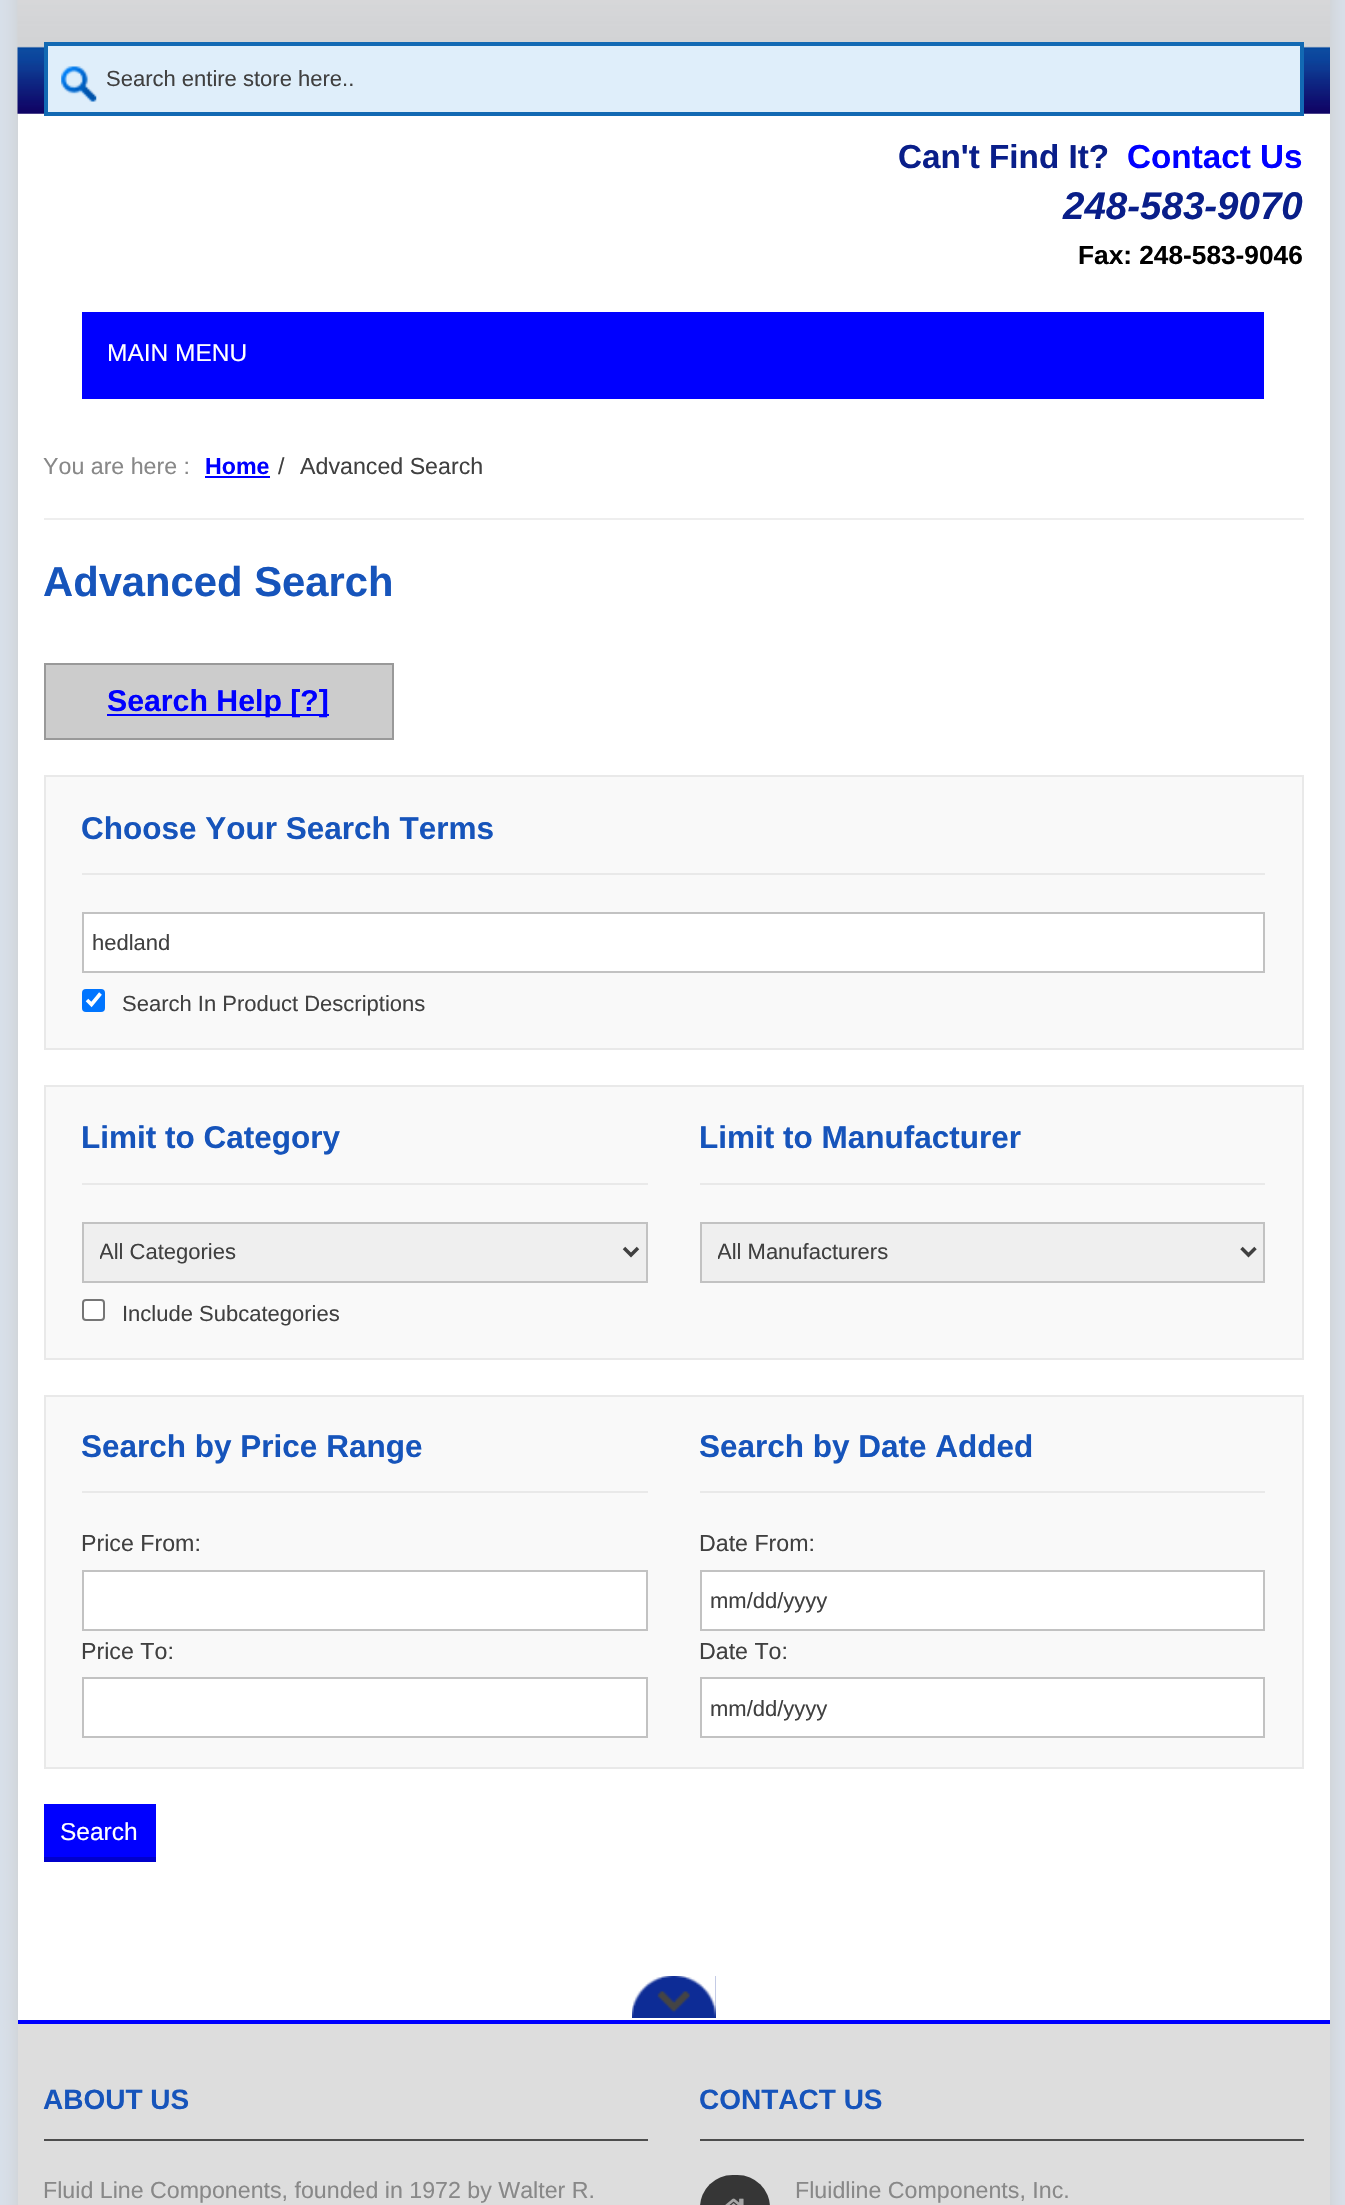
#include "include/core/SkBlurTypes.h"
#include "include/core/SkCanvas.h"
#include "include/core/SkData.h"
#include "include/core/SkFont.h"
#include "include/core/SkFontMgr.h"
#include "include/core/SkImage.h"
#include "include/core/SkMaskFilter.h"
#include "include/core/SkPaint.h"
#include "include/core/SkPathBuilder.h"
#include "include/core/SkTextBlob.h"
#include "include/effects/SkDashPathEffect.h"
#include "include/effects/SkGradientShader.h"
#include "include/utils/SkParsePath.h"

extern sk_sp<SkFontMgr> fontMgr;

void draw(SkCanvas* canvas) {
  SkPaint p;
  p.setAntiAlias(true);
  canvas->clear(SkColorSetRGB(216, 224, 234));
  p.setColor(SkColorSetRGB(204, 204, 204));
  p.setMaskFilter(SkMaskFilter::MakeBlur(kNormal_SkBlurStyle, 9));
  canvas->drawRect(SkRect::MakeLTRB(18, -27, 1330, 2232), p);
  p.setMaskFilter(nullptr);
  p.setColor(SK_ColorWHITE);
  canvas->drawRect(SkRect::MakeLTRB(18, 113, 1330, 2020), p);
  canvas->drawImageRect(SkImages::DeferredFromEncodedData(SkData::MakeFromFileName("images/1.png")), SkRect::MakeLTRB(17, 0, 1330, 114), SkSamplingOptions());
  p.setColor(SkColorSetRGB(223, 238, 250));
  canvas->drawRect(SkRect::MakeLTRB(48, 46, 1300, 112), p);
  canvas->drawImageRect(SkImages::DeferredFromEncodedData(SkData::MakeFromFileName("images/2.png")), SkRect::MakeLTRB(61, 66, 97, 102), SkSamplingOptions());
  p.setStyle(SkPaint::kStroke_Style);
  p.setStrokeWidth(4);
  p.setColor(SkColorSetRGB(18, 105, 179));
  canvas->drawRect(SkRect::MakeLTRB(46, 44, 1302, 114), p);
  p.setStyle(SkPaint::kFill_Style);
  p.setColor(SkColorSetRGB(0, 0, 255));
  canvas->drawRect(SkRect::MakeLTRB(82, 312, 1264, 399), p);
  p.setColor(SkColorSetRGB(238, 238, 238));
  canvas->drawRect(SkRect::MakeLTRB(44, 518, 1304, 520), p);
  p.setColor(SkColorSetRGB(0, 0, 255));
  canvas->drawRect(SkRect::MakeLTRB(205, 476, 270, 478), p);
  p.setColor(SkColorSetRGB(204, 204, 204));
  canvas->drawRect(SkRect::MakeLTRB(45, 664, 393, 739), p);
  p.setStyle(SkPaint::kStroke_Style);
  p.setStrokeWidth(2);
  p.setColor(SkColorSetRGB(153, 153, 153));
  canvas->drawRect(SkRect::MakeLTRB(45, 664, 393, 739), p);
  p.setStyle(SkPaint::kFill_Style);
  p.setColor(SkColorSetRGB(0, 0, 255));
  canvas->drawRect(SkRect::MakeLTRB(107, 714, 329, 716), p);
  p.setColor(SkColorSetRGB(249, 249, 249));
  canvas->drawRect(SkRect::MakeLTRB(45, 776, 1303, 1049), p);
  p.setStyle(SkPaint::kStroke_Style);
  p.setColor(SkColorSetRGB(233, 233, 233));
  canvas->drawRect(SkRect::MakeLTRB(45, 776, 1303, 1049), p);
  p.setStyle(SkPaint::kFill_Style);
  canvas->drawRect(SkRect::MakeLTRB(82, 873, 1265, 875), p);
  p.setColor(SK_ColorWHITE);
  canvas->drawRect(SkRect::MakeLTRB(83, 913, 1264, 972), p);
  p.setStyle(SkPaint::kStroke_Style);
  p.setColor(SkColorSetRGB(194, 194, 194));
  canvas->drawRect(SkRect::MakeLTRB(83, 913, 1264, 972), p);
  p.setStyle(SkPaint::kFill_Style);
  p.setColor(SkColorSetRGB(0, 117, 255));
  canvas->drawRoundRect(SkRect::MakeLTRB(82, 989, 105, 1012), 4, 4, p);
  p.setStyle(SkPaint::kStroke_Style);
  p.setStrokeWidth(3.6f);
  p.setColor(SK_ColorWHITE);
  canvas->drawPath(SkPathBuilder().moveTo(87, 1000).lineTo(91.5f, 1004.5f).lineTo(100.5f, 993.5f).detach(), p);
  p.setStyle(SkPaint::kFill_Style);
  p.setColor(SkColorSetRGB(249, 249, 249));
  canvas->drawRect(SkRect::MakeLTRB(45, 1086, 1303, 1359), p);
  p.setStyle(SkPaint::kStroke_Style);
  p.setStrokeWidth(2);
  p.setColor(SkColorSetRGB(233, 233, 233));
  canvas->drawRect(SkRect::MakeLTRB(45, 1086, 1303, 1359), p);
  p.setStyle(SkPaint::kFill_Style);
  canvas->drawRect(SkRect::MakeLTRB(82, 1183, 648, 1185), p);
  p.setColor(SkColorSetRGB(239, 239, 239));
  canvas->drawRect(SkRect::MakeLTRB(83, 1223, 647, 1282), p);
  p.setStyle(SkPaint::kStroke_Style);
  p.setColor(SkColorSetRGB(194, 194, 194));
  canvas->drawRect(SkRect::MakeLTRB(83, 1223, 647, 1282), p);
  p.setStrokeWidth(3.5f);
  p.setColor(SkColorSetRGB(64, 64, 64));
  canvas->drawPath(SkPathBuilder().moveTo(624, 1248).lineTo(631, 1255).lineTo(638, 1248).detach(), p);
  p.setStyle(SkPaint::kFill_Style);
  p.setColor(SK_ColorWHITE);
  canvas->drawRoundRect(SkRect::MakeLTRB(83, 1300, 104, 1320), 3, 3, p);
  p.setStyle(SkPaint::kStroke_Style);
  p.setStrokeWidth(2);
  p.setColor(SkColorSetRGB(118, 118, 118));
  canvas->drawRoundRect(SkRect::MakeLTRB(83, 1300, 104, 1320), 3, 3, p);
  p.setStyle(SkPaint::kFill_Style);
  p.setColor(SkColorSetRGB(233, 233, 233));
  canvas->drawRect(SkRect::MakeLTRB(700, 1183, 1265, 1185), p);
  p.setColor(SkColorSetRGB(239, 239, 239));
  canvas->drawRect(SkRect::MakeLTRB(701, 1223, 1264, 1282), p);
  p.setStyle(SkPaint::kStroke_Style);
  p.setColor(SkColorSetRGB(194, 194, 194));
  canvas->drawRect(SkRect::MakeLTRB(701, 1223, 1264, 1282), p);
  p.setStrokeWidth(3.5f);
  p.setColor(SkColorSetRGB(64, 64, 64));
  canvas->drawPath(SkPathBuilder().moveTo(1241.5f, 1248).lineTo(1248.5f, 1255).lineTo(1255.5f, 1248).detach(), p);
  p.setStyle(SkPaint::kFill_Style);
  p.setColor(SkColorSetRGB(249, 249, 249));
  canvas->drawRect(SkRect::MakeLTRB(45, 1396, 1303, 1768), p);
  p.setStyle(SkPaint::kStroke_Style);
  p.setStrokeWidth(2);
  p.setColor(SkColorSetRGB(233, 233, 233));
  canvas->drawRect(SkRect::MakeLTRB(45, 1396, 1303, 1768), p);
  p.setStyle(SkPaint::kFill_Style);
  canvas->drawRect(SkRect::MakeLTRB(82, 1491, 648, 1493), p);
  p.setColor(SK_ColorWHITE);
  canvas->drawRect(SkRect::MakeLTRB(83, 1571, 647, 1630), p);
  p.setStyle(SkPaint::kStroke_Style);
  p.setColor(SkColorSetRGB(194, 194, 194));
  canvas->drawRect(SkRect::MakeLTRB(83, 1571, 647, 1630), p);
  p.setStyle(SkPaint::kFill_Style);
  p.setColor(SK_ColorWHITE);
  canvas->drawRect(SkRect::MakeLTRB(83, 1678, 647, 1737), p);
  p.setStyle(SkPaint::kStroke_Style);
  p.setColor(SkColorSetRGB(194, 194, 194));
  canvas->drawRect(SkRect::MakeLTRB(83, 1678, 647, 1737), p);
  p.setStyle(SkPaint::kFill_Style);
  p.setColor(SkColorSetRGB(233, 233, 233));
  canvas->drawRect(SkRect::MakeLTRB(700, 1491, 1265, 1493), p);
  p.setColor(SK_ColorWHITE);
  canvas->drawRect(SkRect::MakeLTRB(701, 1571, 1264, 1630), p);
  p.setStyle(SkPaint::kStroke_Style);
  p.setColor(SkColorSetRGB(194, 194, 194));
  canvas->drawRect(SkRect::MakeLTRB(701, 1571, 1264, 1630), p);
  p.setStyle(SkPaint::kFill_Style);
  p.setColor(SK_ColorWHITE);
  canvas->drawRect(SkRect::MakeLTRB(701, 1678, 1264, 1737), p);
  p.setStyle(SkPaint::kStroke_Style);
  p.setColor(SkColorSetRGB(194, 194, 194));
  canvas->drawRect(SkRect::MakeLTRB(701, 1678, 1264, 1737), p);
  p.setStyle(SkPaint::kFill_Style);
  p.setColor(SkColorSetRGB(0, 0, 255));
  canvas->drawRect(SkRect::MakeLTRB(44, 1804, 156, 1857), p);
  p.setColor(SkColorSetRGB(0, 0, 204));
  canvas->drawRect(SkRect::MakeLTRB(44, 1857, 156, 1862), p);
  p.setColor(SkColorSetRGB(13, 44, 150));
  canvas->drawRect(SkRect::MakeLTRB(632, 1976, 716, 2018), p);
  canvas->drawImageRect(SkImages::DeferredFromEncodedData(SkData::MakeFromFileName("images/3.png")), SkRect::MakeLTRB(632, 1976, 716, 2017), SkSamplingOptions());
  p.setColor(SkColorSetRGB(221, 221, 221));
  canvas->drawRect(SkRect::MakeLTRB(18, 2024, 1330, 2205), p);
  p.setColor(SkColorSetRGB(0, 0, 255));
  canvas->drawRect(SkRect::MakeLTRB(18, 2020, 1330, 2024), p);
  p.setColor(SkColorSetRGB(77, 77, 77));
  canvas->drawRect(SkRect::MakeLTRB(44, 2139, 648, 2141), p);
  canvas->drawRect(SkRect::MakeLTRB(700, 2139, 1304, 2141), p);
  p.setColor(SkColorSetRGB(54, 54, 54));
  canvas->drawRoundRect(SkRect::MakeLTRB(700, 2175, 770, 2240), 35, 35, p);
  canvas->drawImageRect(SkImages::DeferredFromEncodedData(SkData::MakeFromFileName("images/4.png")), SkRect::MakeLTRB(725, 2198, 744, 2205), SkSamplingOptions());
  SkFont font1(fontMgr->matchFamilyStyle("Liberation Sans", SkFontStyle::Normal()), 22);
  font1.setSubpixel(true);
  p.setColor(SkColorSetRGB(64, 64, 64));
  canvas->drawString("Search entire store here..", 106, 86, font1, p);
  SkFont font2(fontMgr->matchFamilyStyle("Liberation Sans", SkFontStyle::Bold()), 33.25f);
  font2.setSubpixel(true);
  p.setColor(SkColorSetRGB(9, 30, 137));
  canvas->drawString("Can't Find It?", 898, 168, font2, p);
  p.setColor(SkColorSetRGB(0, 0, 255));
  canvas->drawString("Contact Us", 1127, 168, font2, p);
  SkFont font3(fontMgr->matchFamilyStyle("Liberation Sans", SkFontStyle::BoldItalic()), 38.5f);
  font3.setSubpixel(true);
  p.setColor(SkColorSetRGB(9, 30, 137));
  canvas->drawString("248-583-9070", 1063, 219, font3, p);
  SkFont font4(fontMgr->matchFamilyStyle("Liberation Sans", SkFontStyle::Bold()), 26.25f);
  font4.setSubpixel(true);
  p.setColor(SK_ColorBLACK);
  canvas->drawString("Fax: 248-583-9046", 1078, 264, font4, p);
  SkFont font5(fontMgr->matchFamilyStyle("Liberation Sans", SkFontStyle::Normal()), 24.5f);
  font5.setSubpixel(true);
  p.setColor(SK_ColorWHITE);
  canvas->drawString("MAIN MENU", 107, 361, font5, p);
  SkFont font6(fontMgr->matchFamilyStyle("Liberation Sans", SkFontStyle::Normal()), 23.2f);
  font6.setSubpixel(true);
  p.setColor(SkColorSetRGB(136, 136, 136));
  canvas->drawString("You are here :", 43, 474, font6, p);
  SkFont font7(fontMgr->matchFamilyStyle("Liberation Sans", SkFontStyle::Bold()), 23.2f);
  font7.setSubpixel(true);
  p.setColor(SkColorSetRGB(0, 0, 255));
  canvas->drawString("Home", 205, 474, font7, p);
  p.setColor(SkColorSetRGB(64, 64, 64));
  canvas->drawString("/", 278, 474, font6, p);
  canvas->drawString("Advanced Search", 300, 474, font6, p);
  SkFont font8(fontMgr->matchFamilyStyle("Liberation Sans", SkFontStyle::Bold()), 41.75f);
  font8.setSubpixel(true);
  p.setColor(SkColorSetRGB(22, 84, 187));
  canvas->drawString("Advanced Search", 43, 596, font8, p);
  SkFont font9(fontMgr->matchFamilyStyle("Liberation Sans", SkFontStyle::Bold()), 30.25f);
  font9.setSubpixel(true);
  p.setColor(SkColorSetRGB(0, 0, 255));
  canvas->drawString("Search Help [?]", 107, 711, font9, p);
  SkFont font10(fontMgr->matchFamilyStyle("Liberation Sans", SkFontStyle::Bold()), 31.5f);
  font10.setSubpixel(true);
  p.setColor(SkColorSetRGB(22, 84, 187));
  canvas->drawString("Choose Your Search Terms", 81, 839, font10, p);
  p.setColor(SkColorSetRGB(64, 64, 64));
  canvas->drawString("hedland", 92, 950, font1, p);
  canvas->drawString("Search In Product Descriptions", 122, 1011, font1, p);
  p.setColor(SkColorSetRGB(22, 84, 187));
  canvas->drawString("Limit to Category", 81, 1148, font10, p);
  canvas->save();
  canvas->clipRect(SkRect::MakeLTRB(100, 1239, 609, 1267));
  p.setColor(SkColorSetRGB(64, 64, 64));
  canvas->drawString("All Categories", 99, 1259, font1, p);
  canvas->restore();
  canvas->drawString("Include Subcategories", 122, 1321, font1, p);
  p.setColor(SkColorSetRGB(22, 84, 187));
  canvas->drawString("Limit to Manufacturer", 699, 1148, font10, p);
  canvas->save();
  canvas->clipRect(SkRect::MakeLTRB(718, 1239, 1227, 1267));
  p.setColor(SkColorSetRGB(64, 64, 64));
  canvas->drawString("All Manufacturers", 717, 1259, font1, p);
  canvas->restore();
  p.setColor(SkColorSetRGB(22, 84, 187));
  canvas->drawString("Search by Price Range", 81, 1457, font10, p);
  p.setColor(SkColorSetRGB(64, 64, 64));
  canvas->drawString("Price From:", 81, 1551, font6, p);
  canvas->drawString("Price To:", 81, 1659, font6, p);
  p.setColor(SkColorSetRGB(22, 84, 187));
  canvas->drawString("Search by Date Added", 699, 1457, font10, p);
  p.setColor(SkColorSetRGB(64, 64, 64));
  canvas->drawString("Date From:", 699, 1551, font6, p);
  canvas->drawString("mm/dd/yyyy", 710, 1608, font1, p);
  canvas->drawString("Date To:", 699, 1659, font6, p);
  canvas->drawString("mm/dd/yyyy", 710, 1716, font1, p);
  p.setColor(SK_ColorWHITE);
  canvas->drawString("Search", 60, 1840, font5, p);
  SkFont font11(fontMgr->matchFamilyStyle("Liberation Sans", SkFontStyle::Bold()), 28);
  font11.setSubpixel(true);
  p.setColor(SkColorSetRGB(22, 84, 187));
  canvas->drawString("ABOUT US", 43, 2109, font11, p);
  p.setColor(SkColorSetRGB(136, 136, 136));
  canvas->drawString("Fluid Line Components, founded in 1972 by Walter R.", 43, 2198, font6, p);
  p.setColor(SkColorSetRGB(22, 84, 187));
  canvas->drawString("CONTACT US", 699, 2109, font11, p);
  p.setColor(SkColorSetRGB(136, 136, 136));
  canvas->drawString("Fluidline Components, Inc.", 795, 2198, font6, p);
}
